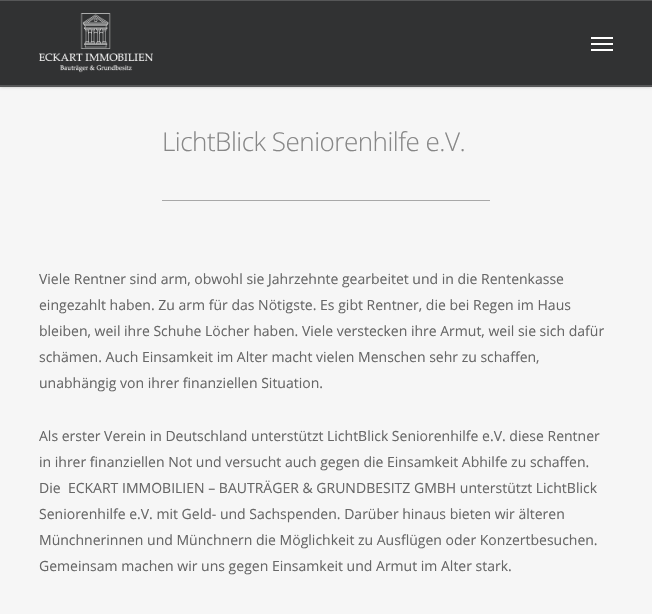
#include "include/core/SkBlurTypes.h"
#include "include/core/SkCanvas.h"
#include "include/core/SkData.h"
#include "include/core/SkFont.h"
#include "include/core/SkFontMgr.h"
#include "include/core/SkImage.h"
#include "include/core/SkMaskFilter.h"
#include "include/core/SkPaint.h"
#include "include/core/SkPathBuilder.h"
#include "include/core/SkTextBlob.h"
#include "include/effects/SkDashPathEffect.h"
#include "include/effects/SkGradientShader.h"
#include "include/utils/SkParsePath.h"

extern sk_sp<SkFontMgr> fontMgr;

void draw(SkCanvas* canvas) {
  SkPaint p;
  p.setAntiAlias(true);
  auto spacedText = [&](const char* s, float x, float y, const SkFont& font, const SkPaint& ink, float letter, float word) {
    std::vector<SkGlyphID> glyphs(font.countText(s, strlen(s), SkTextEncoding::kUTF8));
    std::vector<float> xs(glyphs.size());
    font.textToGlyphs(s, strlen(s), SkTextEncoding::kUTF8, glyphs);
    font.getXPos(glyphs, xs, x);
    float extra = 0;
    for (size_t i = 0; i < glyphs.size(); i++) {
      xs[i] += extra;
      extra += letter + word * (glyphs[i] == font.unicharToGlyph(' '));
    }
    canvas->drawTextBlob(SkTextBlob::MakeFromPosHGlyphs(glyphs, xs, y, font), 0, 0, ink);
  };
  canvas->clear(SkColorSetRGB(246, 246, 246));
  p.setColor(SkColorSetARGB(56, 0, 0, 0));
  p.setMaskFilter(SkMaskFilter::MakeBlur(kNormal_SkBlurStyle, 1.5f));
  canvas->drawRect(SkRect::MakeLTRB(0, 0, 652, 87), p);
  p.setMaskFilter(nullptr);
  p.setColor(SkColorSetRGB(49, 50, 51));
  canvas->drawRect(SkRect::MakeLTRB(0, 1, 652, 85), p);
  p.setColor(SkColorSetRGB(86, 87, 88));
  canvas->drawRect(SkRect::MakeLTRB(0, 0, 652, 1), p);
  canvas->drawRect(SkRect::MakeLTRB(0, 85, 652, 87), p);
  canvas->drawImageRect(SkImages::DeferredFromEncodedData(SkData::MakeFromFileName("images/1.png")), SkRect::MakeLTRB(39, 13, 153, 73), SkSamplingOptions());
  p.setColor(SK_ColorWHITE);
  canvas->drawRect(SkRect::MakeLTRB(591, 37, 613, 39), p);
  canvas->drawRect(SkRect::MakeLTRB(591, 49, 613, 51), p);
  canvas->drawRect(SkRect::MakeLTRB(591, 43, 613, 45), p);
  p.setColor(SkColorSetRGB(168, 168, 168));
  canvas->drawRect(SkRect::MakeLTRB(162, 200, 490, 201), p);
  SkFont font1(fontMgr->matchFamilyStyle("Open Sans", SkFontStyle(300, SkFontStyle::kNormal_Width, SkFontStyle::kUpright_Slant)), 26);
  font1.setSubpixel(true);
  p.setColor(SkColorSetRGB(135, 135, 135));
  spacedText("LichtBlick Seniorenhilfe e.V.", 162, 151, font1, p, -0.5f, 0);
  SkFont font2(fontMgr->matchFamilyStyle("Open Sans", SkFontStyle::Normal()), 14);
  font2.setSubpixel(true);
  p.setColor(SkColorSetRGB(103, 103, 103));
  canvas->drawString("Viele Rentner sind arm, obwohl sie Jahrzehnte gearbeitet und in die Rentenkasse", 39, 284, font2, p);
  canvas->drawString("eingezahlt haben. Zu arm für das Nötigste. Es gibt Rentner, die bei Regen im Haus", 39, 310, font2, p);
  canvas->drawString("bleiben, weil ihre Schuhe Löcher haben. Viele verstecken ihre Armut, weil sie sich dafür", 39, 336, font2, p);
  canvas->drawString("schämen. Auch Einsamkeit im Alter macht vielen Menschen sehr zu schaffen,", 39, 362, font2, p);
  canvas->drawString("unabhängig von ihrer finanziellen Situation.", 39, 388, font2, p);
  canvas->drawString("Als erster Verein in Deutschland unterstützt LichtBlick Seniorenhilfe e.V. diese Rentner", 39, 441, font2, p);
  canvas->drawString("in ihrer finanziellen Not und versucht auch gegen die Einsamkeit Abhilfe zu schaffen.", 39, 467, font2, p);
  canvas->drawString("Die  ECKART IMMOBILIEN – BAUTRÄGER & GRUNDBESITZ GMBH unterstützt LichtBlick", 39, 493, font2, p);
  canvas->drawString("Seniorenhilfe e.V. mit Geld- und Sachspenden. Darüber hinaus bieten wir älteren", 39, 519, font2, p);
  canvas->drawString("Münchnerinnen und Münchnern die Möglichkeit zu Ausflügen oder Konzertbesuchen.", 39, 545, font2, p);
  canvas->drawString("Gemeinsam machen wir uns gegen Einsamkeit und Armut im Alter stark.", 39, 571, font2, p);
}
